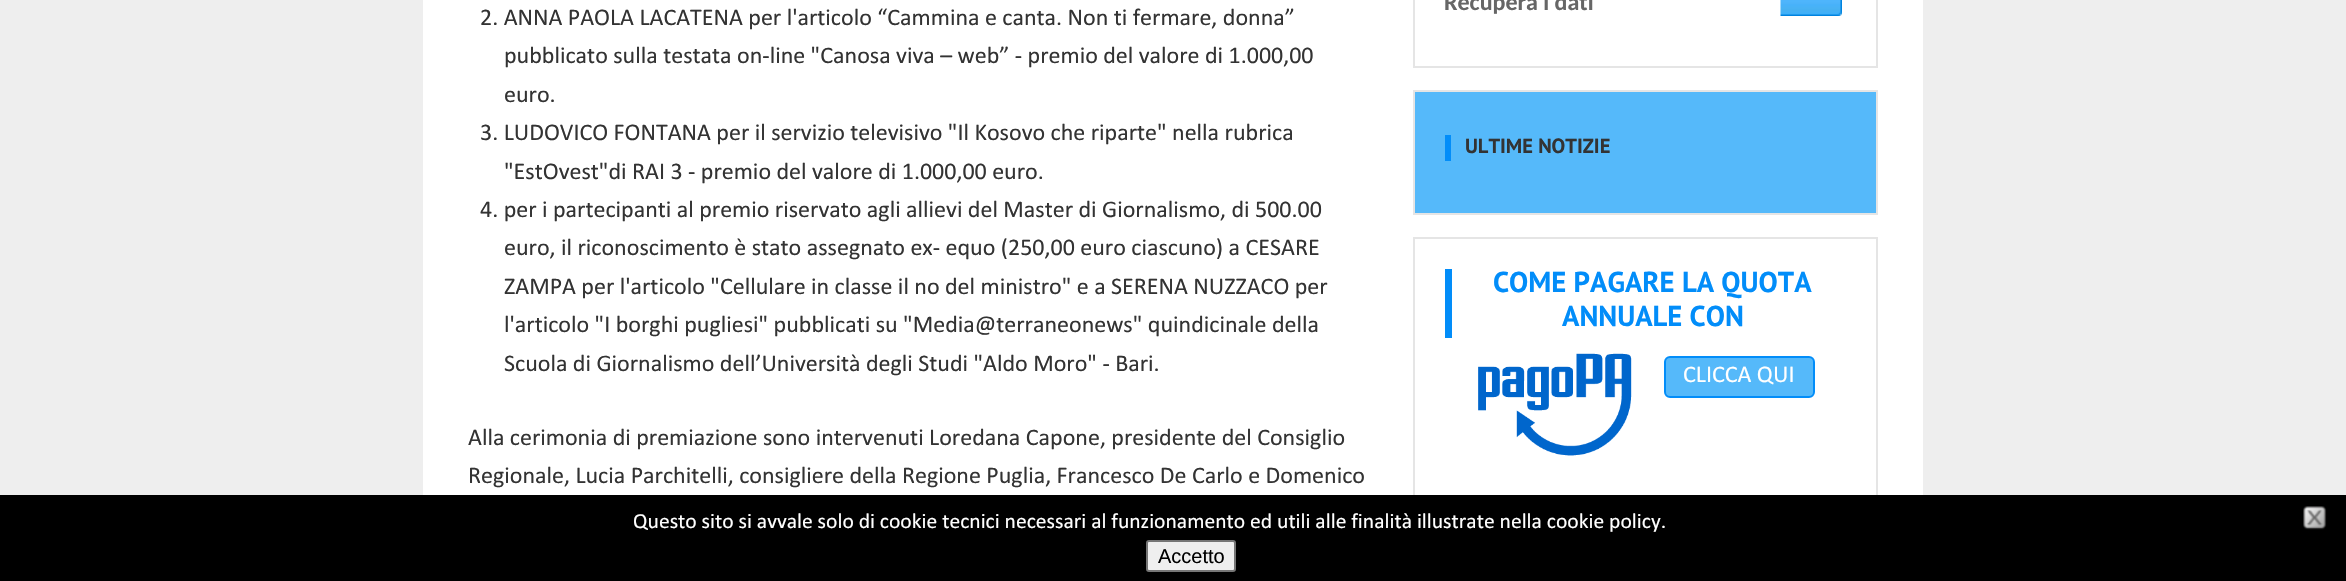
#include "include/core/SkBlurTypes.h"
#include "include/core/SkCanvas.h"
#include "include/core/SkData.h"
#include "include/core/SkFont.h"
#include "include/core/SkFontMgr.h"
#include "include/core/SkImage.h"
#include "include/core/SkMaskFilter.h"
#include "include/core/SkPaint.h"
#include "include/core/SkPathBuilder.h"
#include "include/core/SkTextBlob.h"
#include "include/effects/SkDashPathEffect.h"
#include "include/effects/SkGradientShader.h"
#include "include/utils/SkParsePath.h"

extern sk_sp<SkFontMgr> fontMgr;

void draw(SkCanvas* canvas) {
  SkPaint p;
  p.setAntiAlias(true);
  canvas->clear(SkColorSetRGB(238, 238, 238));
  p.setColor(SK_ColorWHITE);
  canvas->drawRect(SkRect::MakeLTRB(423, 0, 1923, 495), p);
  p.setStyle(SkPaint::kStroke_Style);
  p.setStrokeWidth(2);
  p.setColor(SkColorSetRGB(229, 229, 229));
  canvas->drawRect(SkRect::MakeLTRB(1414, -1, 1877, 67), p);
  canvas->drawImageRect(SkImages::DeferredFromEncodedData(SkData::MakeFromFileName("images/1.png")), SkRect::MakeLTRB(1780, 0, 1842, 16), SkSamplingOptions());
  p.setStyle(SkPaint::kFill_Style);
  p.setColor(SkColorSetRGB(85, 185, 250));
  canvas->drawRect(SkRect::MakeLTRB(1414, 91, 1877, 214), p);
  p.setStyle(SkPaint::kStroke_Style);
  p.setColor(SkColorSetRGB(229, 229, 229));
  canvas->drawRect(SkRect::MakeLTRB(1414, 91, 1877, 214), p);
  p.setStyle(SkPaint::kFill_Style);
  p.setColor(SkColorSetRGB(2, 141, 249));
  canvas->drawRect(SkRect::MakeLTRB(1445, 135, 1451, 161), p);
  p.setStyle(SkPaint::kStroke_Style);
  p.setColor(SkColorSetRGB(229, 229, 229));
  canvas->drawRect(SkRect::MakeLTRB(1414, 238, 1877, 496), p);
  p.setStyle(SkPaint::kFill_Style);
  p.setColor(SkColorSetRGB(2, 141, 249));
  canvas->drawRect(SkRect::MakeLTRB(1445, 269, 1452, 338), p);
  canvas->drawImageRect(SkImages::DeferredFromEncodedData(SkData::MakeFromFileName("images/2.png")), SkRect::MakeLTRB(1478, 353, 1632, 456), SkSamplingOptions());
  p.setColor(SkColorSetRGB(85, 185, 250));
  canvas->drawRoundRect(SkRect::MakeLTRB(1665, 357, 1814, 397), 5, 5, p);
  p.setStyle(SkPaint::kStroke_Style);
  p.setColor(SkColorSetRGB(2, 141, 249));
  canvas->drawRoundRect(SkRect::MakeLTRB(1665, 357, 1814, 397), 5, 5, p);
  p.setStyle(SkPaint::kFill_Style);
  p.setColor(SK_ColorBLACK);
  canvas->drawRect(SkRect::MakeLTRB(0, 495, 2346, 581), p);
  canvas->drawImageRect(SkImages::DeferredFromEncodedData(SkData::MakeFromFileName("images/3.png")), SkRect::MakeLTRB(2303, 506, 2327, 530), SkSamplingOptions());
  p.setColor(SkColorSetRGB(239, 239, 239));
  canvas->drawRoundRect(SkRect::MakeLTRB(1147, 541, 1235, 571), 2, 2, p);
  p.setStyle(SkPaint::kStroke_Style);
  p.setColor(SkColorSetRGB(118, 118, 118));
  canvas->drawRoundRect(SkRect::MakeLTRB(1147, 541, 1235, 571), 2, 2, p);
  SkFont font1(fontMgr->matchFamilyStyle("Calibri", SkFontStyle::Normal()), 24);
  font1.setSubpixel(true);
  p.setStyle(SkPaint::kFill_Style);
  p.setColor(SkColorSetRGB(51, 51, 51));
  canvas->drawString("2. ANNA PAOLA LACATENA per l'articolo “Cammina e canta. Non ti fermare, donna”", 480, 25, font1, p);
  canvas->drawString("pubblicato sulla testata on-line \"Canosa viva – web” - premio del valore di 1.000,00", 504, 63, font1, p);
  canvas->drawString("euro.", 504, 102, font1, p);
  canvas->drawString("3. LUDOVICO FONTANA per il servizio televisivo \"Il Kosovo che riparte\" nella rubrica", 480, 140, font1, p);
  canvas->drawString("\"EstOvest\"di RAI 3 - premio del valore di 1.000,00 euro.", 504, 179, font1, p);
  canvas->drawString("4. per i partecipanti al premio riservato agli allievi del Master di Giornalismo, di 500.00", 480, 217, font1, p);
  canvas->drawString("euro, il riconoscimento è stato assegnato ex- equo (250,00 euro ciascuno) a CESARE", 504, 255, font1, p);
  canvas->drawString("ZAMPA per l'articolo \"Cellulare in classe il no del ministro\" e a SERENA NUZZACO per", 504, 294, font1, p);
  canvas->drawString("l'articolo \"I borghi pugliesi\" pubblicati su \"Media@terraneonews\" quindicinale della", 504, 332, font1, p);
  canvas->drawString("Scuola di Giornalismo dell’Università degli Studi \"Aldo Moro\" - Bari.", 504, 371, font1, p);
  canvas->drawString("Alla cerimonia di premiazione sono intervenuti Loredana Capone, presidente del Consiglio", 468, 445, font1, p);
  canvas->drawString("Regionale, Lucia Parchitelli, consigliere della Regione Puglia, Francesco De Carlo e Domenico", 468, 483, font1, p);
  SkFont font2(fontMgr->matchFamilyStyle("Carlito", SkFontStyle::Bold()), 24);
  font2.setSubpixel(true);
  p.setColor(SkColorSetRGB(102, 102, 102));
  canvas->drawString("Recupera i dati", 1444, 10, font2, p);
  SkFont font3(fontMgr->matchFamilyStyle("PT Sans", SkFontStyle::Bold()), 20.5f);
  font3.setSubpixel(true);
  p.setColor(SkColorSetRGB(51, 51, 51));
  canvas->drawString("ULTIME NOTIZIE", 1465, 153, font3, p);
  SkFont font4(fontMgr->matchFamilyStyle("PT Sans", SkFontStyle::Bold()), 28.75f);
  font4.setSubpixel(true);
  p.setColor(SkColorSetRGB(2, 141, 249));
  canvas->drawString("COME PAGARE LA QUOTA", 1493, 292, font4, p);
  canvas->drawString("ANNUALE CON", 1562, 326, font4, p);
  p.setColor(SK_ColorWHITE);
  canvas->drawString("CLICCA QUI", 1683, 382, font1, p);
  SkFont font5(fontMgr->matchFamilyStyle("Calibri", SkFontStyle::Normal()), 21.6f);
  font5.setSubpixel(true);
  canvas->drawString("Questo sito si avvale solo di cookie tecnici necessari al funzionamento ed utili alle finalità illustrate nella cookie policy.", 633, 528, font5, p);
  SkFont font6(fontMgr->matchFamilyStyle("Liberation Sans", SkFontStyle::Normal()), 20);
  font6.setSubpixel(true);
  p.setColor(SK_ColorBLACK);
  canvas->drawString("Accetto", 1158, 563, font6, p);
}
